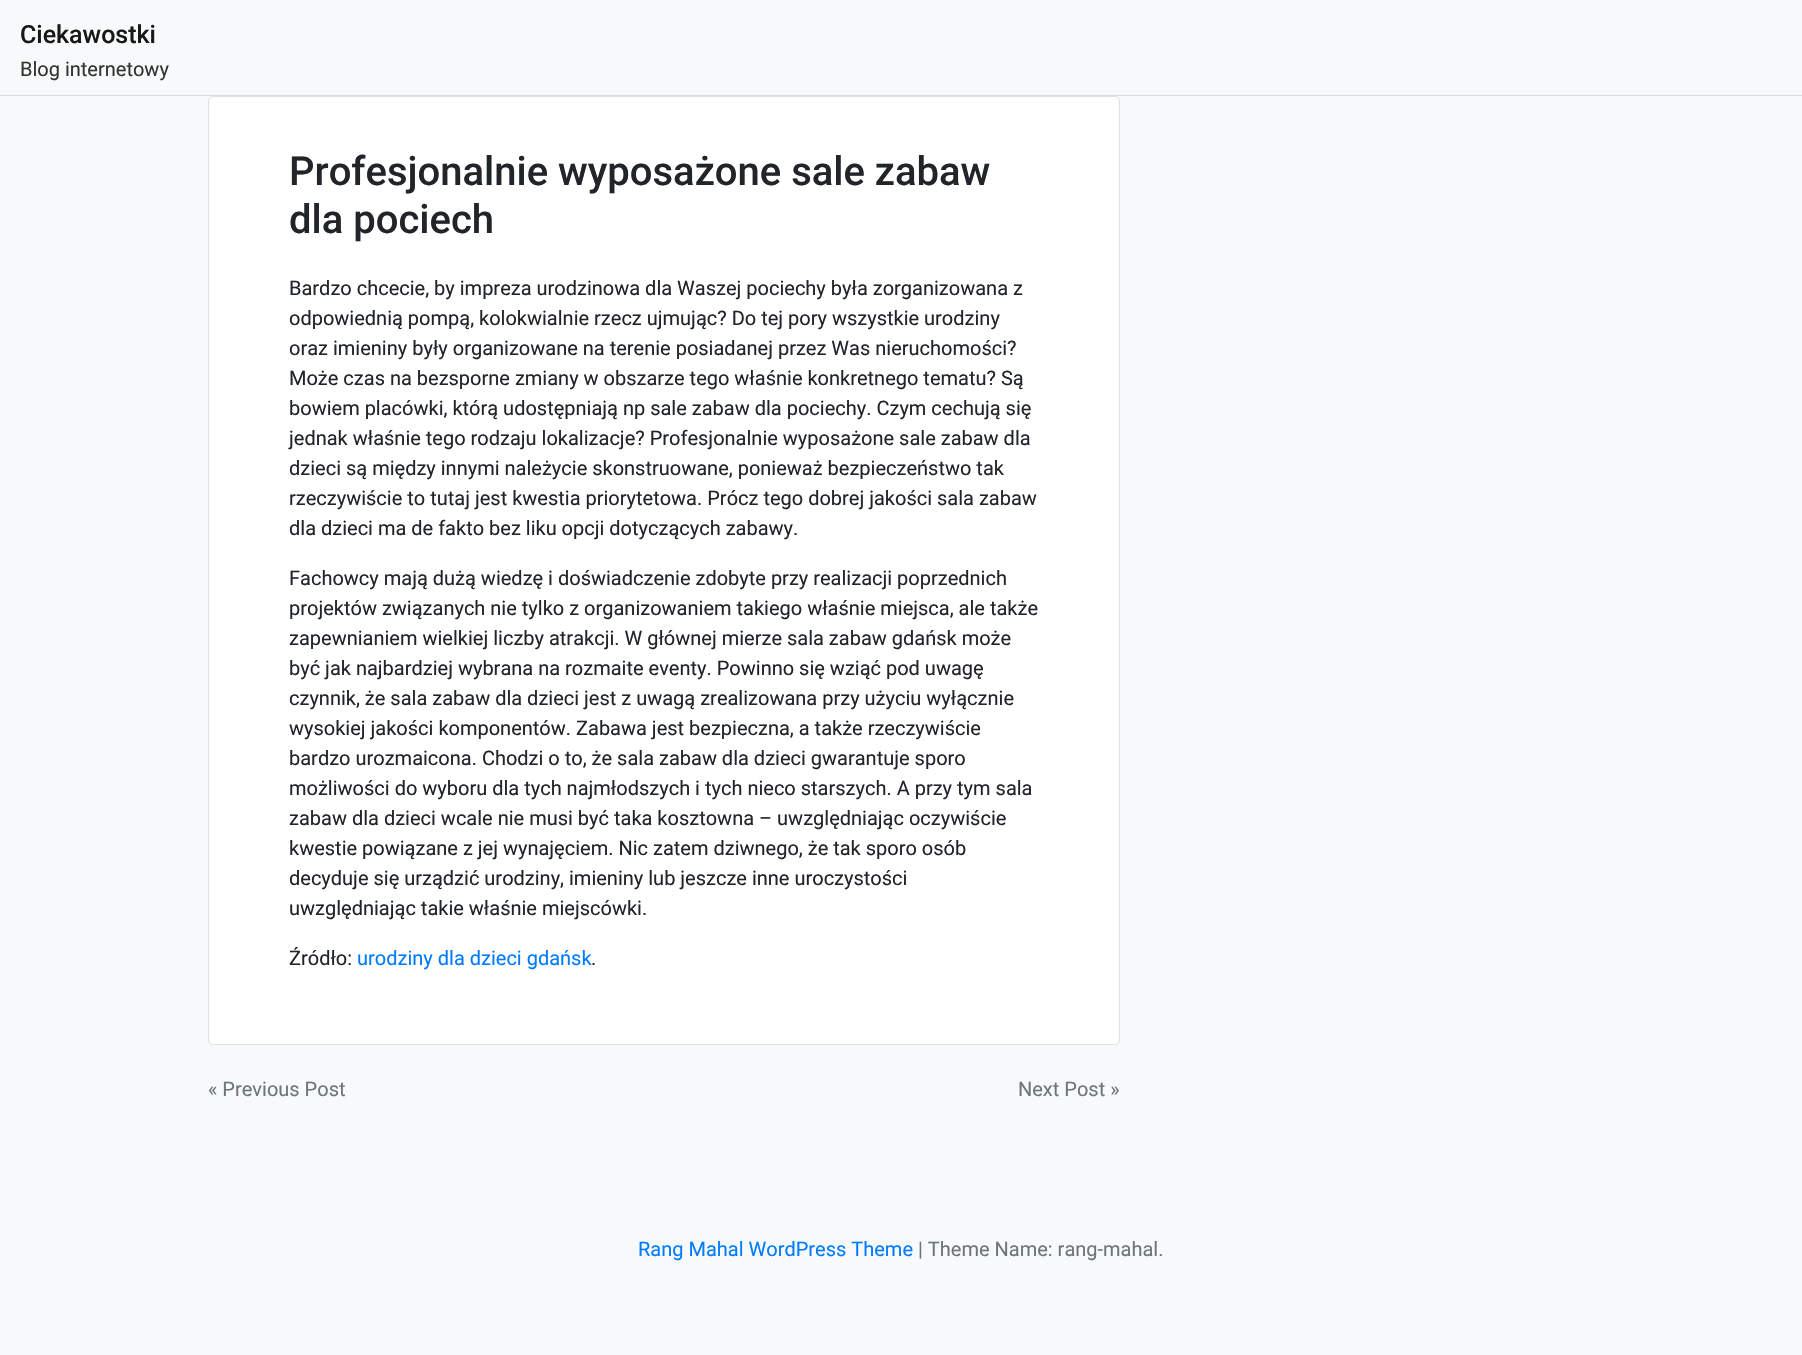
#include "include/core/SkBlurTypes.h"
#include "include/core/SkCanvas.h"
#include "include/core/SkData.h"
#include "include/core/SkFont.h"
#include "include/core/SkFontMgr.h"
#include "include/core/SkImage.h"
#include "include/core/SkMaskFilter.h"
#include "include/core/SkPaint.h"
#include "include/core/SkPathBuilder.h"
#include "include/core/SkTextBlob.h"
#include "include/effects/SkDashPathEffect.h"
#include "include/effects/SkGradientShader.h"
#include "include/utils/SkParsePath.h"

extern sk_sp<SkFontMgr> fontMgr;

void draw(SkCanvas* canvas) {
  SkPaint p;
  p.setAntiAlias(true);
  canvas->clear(SkColorSetRGB(248, 249, 250));
  p.setColor(SkColorSetRGB(217, 218, 219));
  canvas->drawRect(SkRect::MakeLTRB(0, 95, 1802, 96), p);
  p.setColor(SK_ColorWHITE);
  canvas->drawRoundRect(SkRect::MakeLTRB(208, 96, 1120, 1045), 5, 5, p);
  p.setStyle(SkPaint::kStroke_Style);
  p.setStrokeWidth(1);
  p.setColor(SkColorSetARGB(31, 0, 0, 0));
  canvas->drawRoundRect(SkRect::MakeLTRB(208.5f, 96.5f, 1119.5f, 1044.5f), 4.5f, 4.5f, p);
  SkFont font1(fontMgr->matchFamilyStyle("Roboto", SkFontStyle(500, SkFontStyle::kNormal_Width, SkFontStyle::kUpright_Slant)), 25);
  font1.setSubpixel(true);
  p.setStyle(SkPaint::kFill_Style);
  p.setColor(SkColorSetRGB(25, 25, 25));
  canvas->drawString("Ciekawostki", 20, 43, font1, p);
  SkFont font2(fontMgr->matchFamilyStyle("Roboto", SkFontStyle::Normal()), 20);
  font2.setSubpixel(true);
  p.setColor(SkColorSetRGB(51, 51, 51));
  canvas->drawString("Blog internetowy", 20, 76, font2, p);
  SkFont font3(fontMgr->matchFamilyStyle("Roboto", SkFontStyle(500, SkFontStyle::kNormal_Width, SkFontStyle::kUpright_Slant)), 40);
  font3.setSubpixel(true);
  p.setColor(SkColorSetRGB(33, 37, 41));
  canvas->drawString("Profesjonalnie wyposażone sale zabaw", 289, 185, font3, p);
  canvas->drawString("dla pociech", 289, 233, font3, p);
  canvas->drawString("Bardzo chcecie, by impreza urodzinowa dla Waszej pociechy była zorganizowana z", 289, 295, font2, p);
  canvas->drawString("odpowiednią pompą, kolokwialnie rzecz ujmując? Do tej pory wszystkie urodziny", 289, 325, font2, p);
  canvas->drawString("oraz imieniny były organizowane na terenie posiadanej przez Was nieruchomości?", 289, 355, font2, p);
  canvas->drawString("Może czas na bezsporne zmiany w obszarze tego właśnie konkretnego tematu? Są", 289, 385, font2, p);
  canvas->drawString("bowiem placówki, którą udostępniają np sale zabaw dla pociechy. Czym cechują się", 289, 415, font2, p);
  canvas->drawString("jednak właśnie tego rodzaju lokalizacje? Profesjonalnie wyposażone sale zabaw dla", 289, 445, font2, p);
  canvas->drawString("dzieci są między innymi należycie skonstruowane, ponieważ bezpieczeństwo tak", 289, 475, font2, p);
  canvas->drawString("rzeczywiście to tutaj jest kwestia priorytetowa. Prócz tego dobrej jakości sala zabaw", 289, 505, font2, p);
  canvas->drawString("dla dzieci ma de fakto bez liku opcji dotyczących zabawy.", 289, 535, font2, p);
  canvas->drawString("Fachowcy mają dużą wiedzę i doświadczenie zdobyte przy realizacji poprzednich", 289, 585, font2, p);
  canvas->drawString("projektów związanych nie tylko z organizowaniem takiego właśnie miejsca, ale także", 289, 615, font2, p);
  canvas->drawString("zapewnianiem wielkiej liczby atrakcji. W głównej mierze sala zabaw gdańsk może", 289, 645, font2, p);
  canvas->drawString("być jak najbardziej wybrana na rozmaite eventy. Powinno się wziąć pod uwagę", 289, 675, font2, p);
  canvas->drawString("czynnik, że sala zabaw dla dzieci jest z uwagą zrealizowana przy użyciu wyłącznie", 289, 705, font2, p);
  canvas->drawString("wysokiej jakości komponentów. Zabawa jest bezpieczna, a także rzeczywiście", 289, 735, font2, p);
  canvas->drawString("bardzo urozmaicona. Chodzi o to, że sala zabaw dla dzieci gwarantuje sporo", 289, 765, font2, p);
  canvas->drawString("możliwości do wyboru dla tych najmłodszych i tych nieco starszych. A przy tym sala", 289, 795, font2, p);
  canvas->drawString("zabaw dla dzieci wcale nie musi być taka kosztowna – uwzględniając oczywiście", 289, 825, font2, p);
  canvas->drawString("kwestie powiązane z jej wynajęciem. Nic zatem dziwnego, że tak sporo osób", 289, 855, font2, p);
  canvas->drawString("decyduje się urządzić urodziny, imieniny lub jeszcze inne uroczystości", 289, 885, font2, p);
  canvas->drawString("uwzględniając takie właśnie miejscówki.", 289, 915, font2, p);
  canvas->drawString("Źródło:", 289, 965, font2, p);
  p.setColor(SkColorSetRGB(0, 123, 255));
  canvas->drawString("urodziny dla dzieci gdańsk", 357, 965, font2, p);
  p.setColor(SkColorSetRGB(33, 37, 41));
  canvas->drawString(".", 591, 965, font2, p);
  p.setColor(SkColorSetRGB(108, 117, 125));
  canvas->drawString("« Previous Post", 208, 1096, font2, p);
  canvas->drawString("Next Post »", 1018, 1096, font2, p);
  p.setColor(SkColorSetRGB(0, 123, 255));
  canvas->drawString("Rang Mahal WordPress Theme", 638, 1256, font2, p);
  p.setColor(SkColorSetRGB(108, 117, 125));
  canvas->drawString("| Theme Name: rang-mahal.", 918, 1256, font2, p);
}
